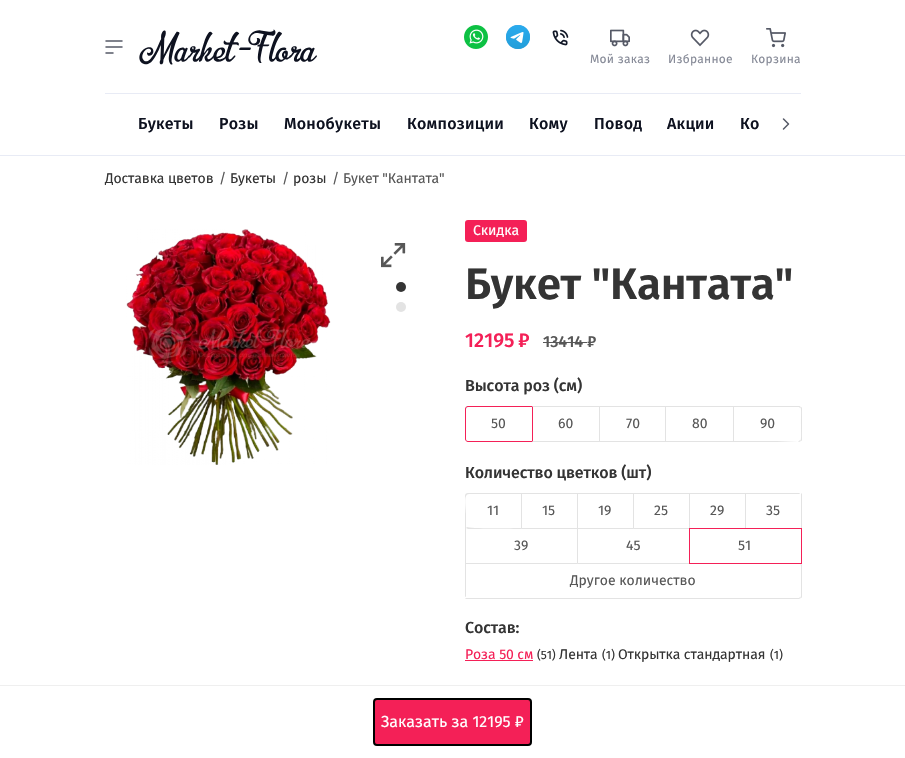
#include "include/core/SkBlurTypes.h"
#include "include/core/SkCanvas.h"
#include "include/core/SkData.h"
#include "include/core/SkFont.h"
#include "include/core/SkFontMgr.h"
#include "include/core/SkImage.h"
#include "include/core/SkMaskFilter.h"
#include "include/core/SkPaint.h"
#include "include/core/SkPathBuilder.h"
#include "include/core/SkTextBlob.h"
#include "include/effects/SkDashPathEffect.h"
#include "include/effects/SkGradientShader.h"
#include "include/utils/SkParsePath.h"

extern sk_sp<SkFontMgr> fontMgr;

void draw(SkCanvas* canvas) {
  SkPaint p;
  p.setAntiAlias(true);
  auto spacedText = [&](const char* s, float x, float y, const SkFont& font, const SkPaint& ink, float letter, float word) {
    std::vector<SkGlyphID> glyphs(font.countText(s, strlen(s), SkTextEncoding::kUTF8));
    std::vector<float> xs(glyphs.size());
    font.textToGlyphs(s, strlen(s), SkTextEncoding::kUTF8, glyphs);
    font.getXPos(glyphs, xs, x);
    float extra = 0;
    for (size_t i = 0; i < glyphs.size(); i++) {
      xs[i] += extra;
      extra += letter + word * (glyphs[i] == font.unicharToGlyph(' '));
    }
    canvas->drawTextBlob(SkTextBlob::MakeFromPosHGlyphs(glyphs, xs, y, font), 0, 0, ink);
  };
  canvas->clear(SK_ColorWHITE);
  p.setColor(SkColorSetRGB(232, 235, 245));
  canvas->drawRect(SkRect::MakeLTRB(0, 155, 905, 156), p);
  canvas->drawRect(SkRect::MakeLTRB(105, 93, 801, 94), p);
  p.setStyle(SkPaint::kStroke_Style);
  p.setStrokeWidth(1.5f);
  p.setStrokeCap(SkPaint::kRound_Cap);
  p.setStrokeJoin(SkPaint::kRound_Join);
  p.setColor(SkColorSetRGB(85, 89, 102));
  canvas->drawPath(SkPathBuilder().moveTo(106, 41).lineTo(122, 41).moveTo(106, 47).lineTo(122, 47).moveTo(106, 53).lineTo(113, 53).detach(), p);
  canvas->drawImageRect(SkImages::DeferredFromEncodedData(SkData::MakeFromFileName("images/1.png")), SkRect::MakeLTRB(139, 29, 317, 65), SkSamplingOptions());
  canvas->drawImageRect(SkImages::DeferredFromEncodedData(SkData::MakeFromFileName("images/2.png")), SkRect::MakeLTRB(464, 25, 488, 49), SkSamplingOptions());
  canvas->drawImageRect(SkImages::DeferredFromEncodedData(SkData::MakeFromFileName("images/3.png")), SkRect::MakeLTRB(506, 25, 530, 49), SkSamplingOptions());
  canvas->drawImageRect(SkImages::DeferredFromEncodedData(SkData::MakeFromFileName("images/4.png")), SkRect::MakeLTRB(552, 29, 569, 46), SkSamplingOptions());
  canvas->drawImageRect(SkImages::DeferredFromEncodedData(SkData::MakeFromFileName("images/5.png")), SkRect::MakeLTRB(610, 29, 630, 47), SkSamplingOptions());
  canvas->drawImageRect(SkImages::DeferredFromEncodedData(SkData::MakeFromFileName("images/6.png")), SkRect::MakeLTRB(690, 29, 710, 47), SkSamplingOptions());
  canvas->drawImageRect(SkImages::DeferredFromEncodedData(SkData::MakeFromFileName("images/7.png")), SkRect::MakeLTRB(766, 28, 786, 48), SkSamplingOptions());
  canvas->save();
  canvas->clipRect(SkRect::MakeLTRB(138, 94, 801, 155));
  p.setStyle(SkPaint::kFill_Style);
  p.setColor(SK_ColorWHITE);
  p.setMaskFilter(SkMaskFilter::MakeBlur(kNormal_SkBlurStyle, 6.5f));
  canvas->drawRect(SkRect::MakeLTRB(761, 94, 811, 155), p);
  p.setMaskFilter(nullptr);
  canvas->restore();
  p.setStyle(SkPaint::kStroke_Style);
  p.setColor(SkColorSetRGB(85, 89, 102));
  canvas->drawPath(SkPathBuilder().moveTo(783.5f, 129).lineTo(788.5f, 124).lineTo(783.5f, 119).detach(), p);
  canvas->drawImageRect(SkImages::DeferredFromEncodedData(SkData::MakeFromFileName("images/8.png")), SkRect::MakeLTRB(126, 229, 331, 465), SkSamplingOptions());
  p.setStyle(SkPaint::kFill_Style);
  p.setColor(SkColorSetRGB(52, 52, 52));
  canvas->drawCircle(401, 287, 5, p);
  p.setColor(SkColorSetRGB(227, 227, 227));
  canvas->drawCircle(401, 307, 5, p);
  canvas->drawImageRect(SkImages::DeferredFromEncodedData(SkData::MakeFromFileName("images/9.png")), SkRect::MakeLTRB(381, 243, 406, 268), SkSamplingOptions());
  p.setColor(SkColorSetRGB(244, 32, 87));
  canvas->drawRoundRect(SkRect::MakeLTRB(465, 220, 527, 242), 3, 3, p);
  p.setColor(SkColorSetRGB(87, 87, 87));
  canvas->drawRect(SkRect::MakeLTRB(543, 342, 587, 343), p);
  p.setColor(SkColorSetRGB(227, 227, 227));
  canvas->drawPath(SkPathBuilder().moveTo(469, 407).lineTo(800, 407).cubicTo(800, 406, 799, 406, 798, 406).lineTo(468, 406).cubicTo(466, 406, 465, 407, 465, 409).lineTo(465, 438).cubicTo(465, 439, 465, 440, 466, 440).lineTo(466, 415).cubicTo(466, 412, 465, 407, 469, 407).close().detach(), p);
  p.setStyle(SkPaint::kStroke_Style);
  p.setStrokeWidth(1);
  p.setStrokeCap(SkPaint::kButt_Cap);
  p.setStrokeJoin(SkPaint::kMiter_Join);
  p.setColor(SkColorSetRGB(244, 32, 87));
  canvas->drawPath(SkPathBuilder().moveTo(468, 406.5f).lineTo(532.5f, 406.5f).lineTo(532.5f, 441.5f).lineTo(468, 441.5f).cubicTo(466.5f, 441.5f, 465.5f, 440.5f, 465.5f, 439).lineTo(465.5f, 409).cubicTo(465.5f, 407.5f, 466.5f, 406.5f, 468, 406.5f).close().detach(), p);
  p.setStyle(SkPaint::kFill_Style);
  p.setColor(SkColorSetRGB(227, 227, 227));
  canvas->drawPath(SkPathBuilder().moveTo(532, 406).lineTo(600, 406).lineTo(599, 407).lineTo(533, 407).close().detach(), p);
  canvas->drawRect(SkRect::MakeLTRB(599, 406, 600, 442), p);
  canvas->drawPath(SkPathBuilder().moveTo(600, 442).lineTo(532, 442).lineTo(533, 441).lineTo(599, 441).close().detach(), p);
  canvas->drawRect(SkRect::MakeLTRB(665, 406, 666, 442), p);
  canvas->drawPath(SkPathBuilder().moveTo(666, 442).lineTo(599, 442).lineTo(600, 441).lineTo(665, 441).close().detach(), p);
  canvas->drawRect(SkRect::MakeLTRB(733, 406, 734, 442), p);
  canvas->drawPath(SkPathBuilder().moveTo(734, 442).lineTo(665, 442).lineTo(666, 441).lineTo(733, 441).close().detach(), p);
  canvas->drawPath(SkPathBuilder().moveTo(733, 406).lineTo(734, 407).lineTo(777, 407).lineTo(798, 406).lineTo(800, 408).lineTo(801, 407).lineTo(799, 406).close().detach(), p);
  canvas->drawPath(SkPathBuilder().moveTo(802, 439).lineTo(802, 409).cubicTo(802, 408, 802, 407, 801, 407).lineTo(800.5f, 407.5f).cubicTo(801.5f, 409.5f, 801, 414, 801, 424).cubicTo(801, 434, 801.5f, 438.5f, 800.5f, 440.5f).lineTo(801, 441).cubicTo(802, 441, 802, 440, 802, 439).close().detach(), p);
  canvas->drawPath(SkPathBuilder().moveTo(799, 442).lineTo(801, 441).lineTo(800, 440).lineTo(798, 442).lineTo(777, 441).lineTo(734, 441).lineTo(733, 442).close().detach(), p);
  canvas->drawPath(SkPathBuilder().moveTo(469, 494).lineTo(800, 494).cubicTo(800, 493, 799, 493, 798, 493).lineTo(468, 493).cubicTo(466, 493, 465, 494, 465, 496).lineTo(465, 595).cubicTo(465, 596, 465, 597, 466, 597).lineTo(466, 514).cubicTo(466, 507, 463, 494, 469, 494).close().detach(), p);
  canvas->drawPath(SkPathBuilder().moveTo(522, 493).lineTo(521, 494).lineTo(521, 528).lineTo(522, 529).close().detach(), p);
  canvas->drawPath(SkPathBuilder().moveTo(522, 529).lineTo(521, 528).cubicTo(515, 528, 468, 529, 467, 527).lineTo(466, 528).lineTo(468, 529).close().detach(), p);
  canvas->drawPath(SkPathBuilder().moveTo(578, 493).lineTo(578, 529).lineTo(577, 528).lineTo(577, 494).close().detach(), p);
  canvas->drawPath(SkPathBuilder().moveTo(578, 529).lineTo(521, 529).lineTo(522, 528).lineTo(577, 528).close().detach(), p);
  canvas->drawPath(SkPathBuilder().moveTo(634, 493).lineTo(634, 529).lineTo(633, 528).lineTo(633, 494).close().detach(), p);
  canvas->drawPath(SkPathBuilder().moveTo(634, 529).lineTo(577, 529).lineTo(578, 528).lineTo(633, 528).close().detach(), p);
  canvas->drawPath(SkPathBuilder().moveTo(690, 493).lineTo(690, 529).lineTo(689, 528).lineTo(689, 494).close().detach(), p);
  canvas->drawPath(SkPathBuilder().moveTo(690, 529).lineTo(633, 529).lineTo(634, 528).lineTo(689, 528).close().detach(), p);
  canvas->drawPath(SkPathBuilder().moveTo(746, 493).lineTo(746, 529).lineTo(745, 528).lineTo(745, 494).close().detach(), p);
  canvas->drawPath(SkPathBuilder().moveTo(802, 493).lineTo(802, 529).lineTo(801, 528).lineTo(801, 494).close().detach(), p);
  canvas->drawPath(SkPathBuilder().moveTo(578, 528).lineTo(578, 564).lineTo(577, 563).lineTo(577, 529).close().detach(), p);
  canvas->drawPath(SkPathBuilder().moveTo(578, 564).lineTo(465, 564).lineTo(466, 563).lineTo(577, 563).close().detach(), p);
  canvas->drawPath(SkPathBuilder().moveTo(690, 564).lineTo(577, 564).lineTo(578, 563).lineTo(689, 563).close().detach(), p);
  p.setStyle(SkPaint::kStroke_Style);
  p.setColor(SkColorSetRGB(244, 32, 87));
  canvas->drawRect(SkRect::MakeLTRB(689.5f, 528.5f, 801.5f, 563.5f), p);
  p.setStyle(SkPaint::kFill_Style);
  p.setColor(SkColorSetRGB(227, 227, 227));
  canvas->drawPath(SkPathBuilder().moveTo(802, 596).lineTo(802, 566).cubicTo(802, 565, 802, 564, 801, 564).lineTo(800.5f, 564.5f).lineTo(801, 566).lineTo(801, 596).lineTo(800.5f, 597.5f).lineTo(801, 598).cubicTo(802, 598, 802, 597, 802, 596).close().detach(), p);
  canvas->drawPath(SkPathBuilder().moveTo(799, 599).lineTo(801, 598).lineTo(800, 597).lineTo(799, 598).lineTo(466, 598).lineTo(465, 599).close().detach(), p);
  p.setColor(SkColorSetRGB(244, 32, 87));
  canvas->drawRect(SkRect::MakeLTRB(465, 660, 533, 661), p);
  canvas->save();
  canvas->clipRect(SkRect::MakeLTRB(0, 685, 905, 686));
  p.setColor(SkColorSetARGB(41, 153, 153, 153));
  p.setMaskFilter(SkMaskFilter::MakeBlur(kNormal_SkBlurStyle, 0.5f));
  canvas->drawRect(SkRect::MakeLTRB(0, 685, 905, 757), p);
  p.setMaskFilter(nullptr);
  canvas->restore();
  p.setColor(SkColorSetRGB(244, 32, 87));
  canvas->drawRoundRect(SkRect::MakeLTRB(374, 699, 531, 745), 3, 3, p);
  p.setStyle(SkPaint::kStroke_Style);
  p.setStrokeWidth(2);
  p.setColor(SK_ColorBLACK);
  canvas->drawRoundRect(SkRect::MakeLTRB(374, 699, 531, 745), 3, 3, p);
  SkFont font1(fontMgr->matchFamilyStyle("Fira Sans", SkFontStyle::Normal()), 12);
  font1.setSubpixel(true);
  p.setStyle(SkPaint::kFill_Style);
  p.setColor(SkColorSetRGB(135, 139, 152));
  spacedText("Мой заказ", 590, 63, font1, p, 0.25f, 0);
  spacedText("Избранное", 668, 63, font1, p, 0.25f, 0);
  spacedText("Корзина", 751, 63, font1, p, 0.25f, 0);
  SkFont font2(fontMgr->matchFamilyStyle("Fira Sans", SkFontStyle(500, SkFontStyle::kNormal_Width, SkFontStyle::kUpright_Slant)), 16);
  font2.setSubpixel(true);
  p.setColor(SkColorSetRGB(14, 18, 32));
  spacedText("Букеты", 138, 129, font2, p, 0.25f, 0);
  spacedText("Розы", 219, 129, font2, p, 0.25f, 0);
  spacedText("Монобукеты", 284, 129, font2, p, 0.25f, 0);
  spacedText("Композиции", 407, 129, font2, p, 0.25f, 0);
  spacedText("Кому", 529, 129, font2, p, 0.25f, 0);
  spacedText("Повод", 594, 129, font2, p, 0.25f, 0);
  spacedText("Акции", 667, 129, font2, p, 0.25f, 0);
  spacedText("Ко", 740, 129, font2, p, 0.25f, 0);
  SkFont font3(fontMgr->matchFamilyStyle("Fira Sans", SkFontStyle::Normal()), 14);
  font3.setSubpixel(true);
  p.setColor(SkColorSetRGB(52, 52, 52));
  spacedText("Доставка цветов", 105, 183, font3, p, -0.1f, 0);
  p.setColor(SkColorSetRGB(87, 87, 87));
  spacedText("/", 219, 183, font3, p, -0.1f, 0);
  p.setColor(SkColorSetRGB(52, 52, 52));
  spacedText("Букеты", 230, 183, font3, p, -0.1f, 0);
  p.setColor(SkColorSetRGB(87, 87, 87));
  spacedText("/", 282, 183, font3, p, -0.1f, 0);
  p.setColor(SkColorSetRGB(52, 52, 52));
  spacedText("розы", 293, 183, font3, p, -0.1f, 0);
  p.setColor(SkColorSetRGB(87, 87, 87));
  spacedText("/", 332, 183, font3, p, -0.1f, 0);
  spacedText("Букет \"Кантата\"", 343, 183, font3, p, -0.1f, 0);
  p.setColor(SK_ColorWHITE);
  canvas->drawString("Скидка", 473, 235, font3, p);
  SkFont font4(fontMgr->matchFamilyStyle("Fira Sans", SkFontStyle(600, SkFontStyle::kNormal_Width, SkFontStyle::kUpright_Slant)), 44);
  font4.setSubpixel(true);
  p.setColor(SkColorSetRGB(52, 52, 52));
  spacedText("Букет \"Кантата\"", 465, 299, font4, p, -0.25f, 0);
  SkFont font5(fontMgr->matchFamilyStyle("Fira Sans", SkFontStyle(500, SkFontStyle::kNormal_Width, SkFontStyle::kUpright_Slant)), 20);
  font5.setSubpixel(true);
  p.setColor(SkColorSetRGB(244, 32, 87));
  canvas->drawString("12195", 465, 347, font5, p);
  canvas->drawString("₽", 518, 347, font5, p);
  p.setColor(SkColorSetRGB(87, 87, 87));
  canvas->drawString("13414", 543, 347, font2, p);
  canvas->drawString("₽", 587, 347, font2, p);
  p.setColor(SkColorSetRGB(52, 52, 52));
  spacedText("Высота роз (см)", 465, 391, font2, p, -0.1f, 0);
  p.setColor(SkColorSetRGB(87, 87, 87));
  canvas->drawString("50", 491, 428, font3, p);
  canvas->drawString("60", 558, 428, font3, p);
  canvas->drawString("70", 626, 428, font3, p);
  canvas->drawString("80", 692, 428, font3, p);
  canvas->drawString("90", 760, 428, font3, p);
  p.setColor(SkColorSetRGB(52, 52, 52));
  spacedText("Количество цветков (шт)", 465, 478, font2, p, -0.1f, 0);
  p.setColor(SkColorSetRGB(87, 87, 87));
  canvas->drawString("11", 487, 515, font3, p);
  canvas->drawString("15", 542, 515, font3, p);
  canvas->drawString("19", 598, 515, font3, p);
  canvas->drawString("25", 654, 515, font3, p);
  canvas->drawString("29", 710, 515, font3, p);
  canvas->drawString("35", 766, 515, font3, p);
  canvas->drawString("39", 514, 550, font3, p);
  canvas->drawString("45", 626, 550, font3, p);
  canvas->drawString("51", 738, 550, font3, p);
  canvas->drawString("Другое количество", 570, 585, font3, p);
  p.setColor(SkColorSetRGB(52, 52, 52));
  spacedText("Состав:", 465, 633, font2, p, -0.1f, 0);
  p.setColor(SkColorSetRGB(244, 32, 87));
  spacedText("Роза 50 см", 465, 659, font3, p, -0.1f, 0);
  p.setColor(SkColorSetRGB(52, 52, 52));
  spacedText("(51)", 537, 659, font1, p, -0.1f, 0);
  spacedText("Лента", 559, 659, font3, p, -0.1f, 0);
  spacedText("(1)", 602, 659, font1, p, -0.1f, 0);
  spacedText("Открытка стандартная", 618, 659, font3, p, -0.1f, 0);
  spacedText("(1)", 770, 659, font1, p, -0.1f, 0);
  SkFont font6(fontMgr->matchFamilyStyle("Fira Sans", SkFontStyle::Normal()), 16);
  font6.setSubpixel(true);
  p.setColor(SK_ColorWHITE);
  canvas->drawString("Заказать за 12195 ₽", 381, 727, font6, p);
}
